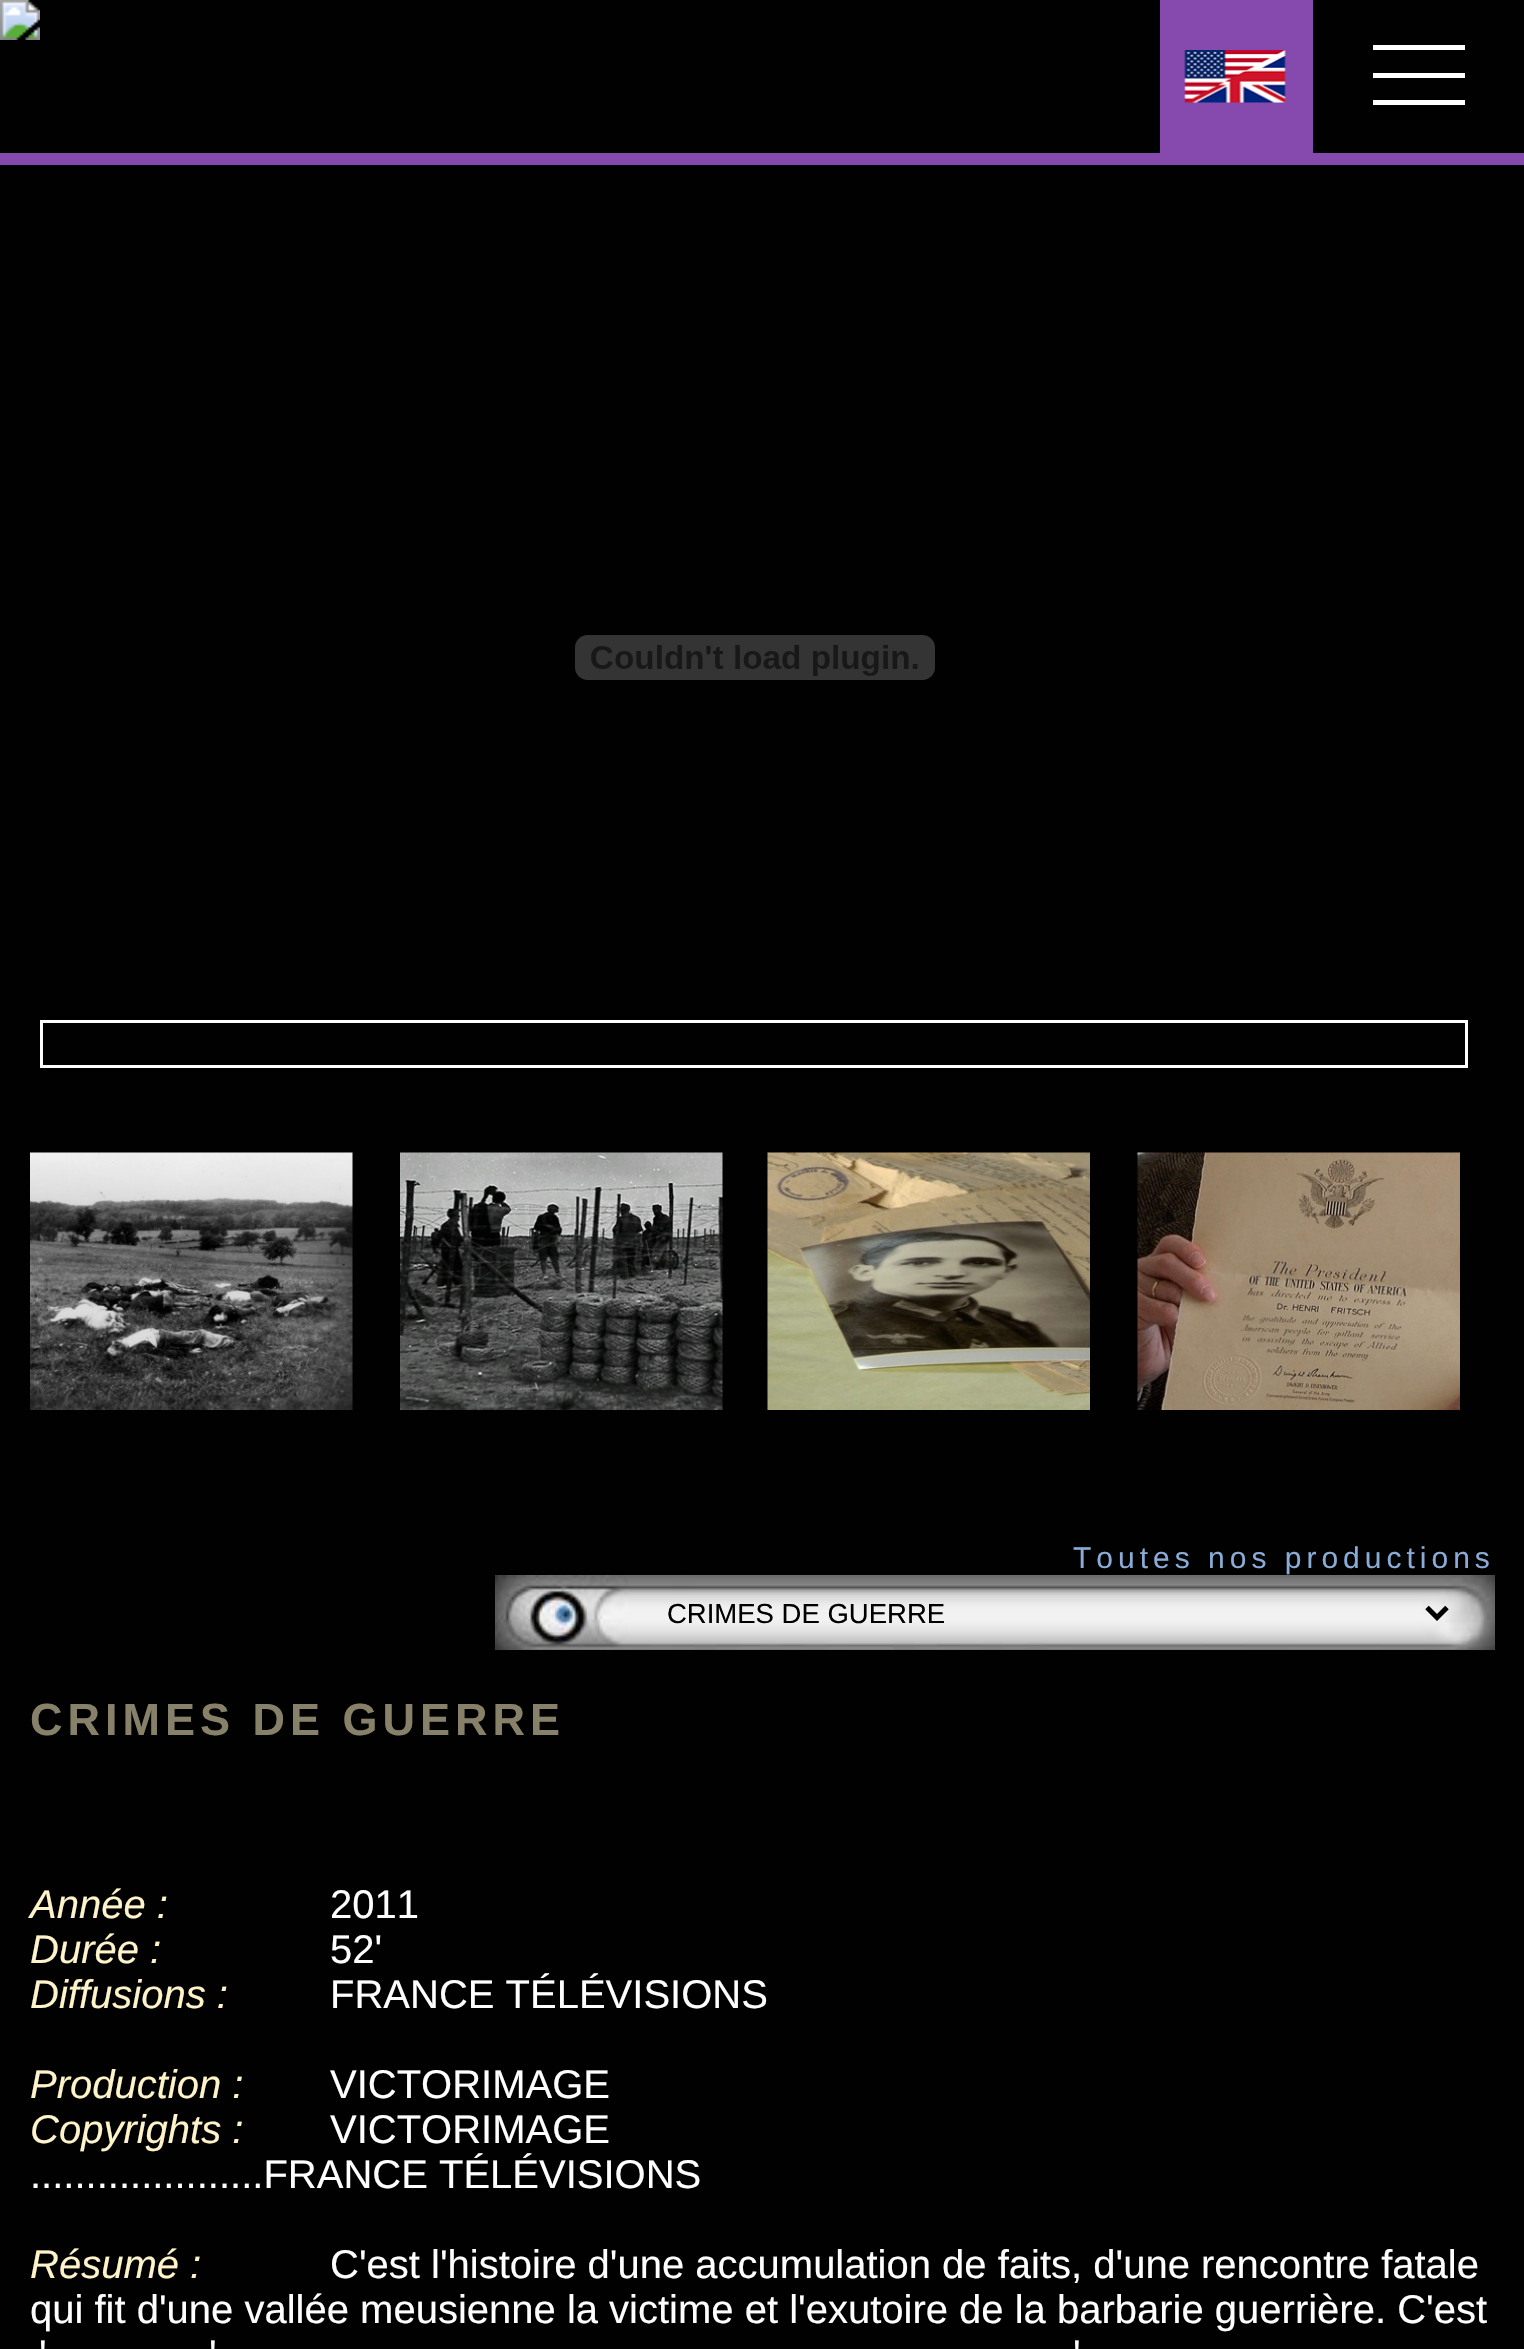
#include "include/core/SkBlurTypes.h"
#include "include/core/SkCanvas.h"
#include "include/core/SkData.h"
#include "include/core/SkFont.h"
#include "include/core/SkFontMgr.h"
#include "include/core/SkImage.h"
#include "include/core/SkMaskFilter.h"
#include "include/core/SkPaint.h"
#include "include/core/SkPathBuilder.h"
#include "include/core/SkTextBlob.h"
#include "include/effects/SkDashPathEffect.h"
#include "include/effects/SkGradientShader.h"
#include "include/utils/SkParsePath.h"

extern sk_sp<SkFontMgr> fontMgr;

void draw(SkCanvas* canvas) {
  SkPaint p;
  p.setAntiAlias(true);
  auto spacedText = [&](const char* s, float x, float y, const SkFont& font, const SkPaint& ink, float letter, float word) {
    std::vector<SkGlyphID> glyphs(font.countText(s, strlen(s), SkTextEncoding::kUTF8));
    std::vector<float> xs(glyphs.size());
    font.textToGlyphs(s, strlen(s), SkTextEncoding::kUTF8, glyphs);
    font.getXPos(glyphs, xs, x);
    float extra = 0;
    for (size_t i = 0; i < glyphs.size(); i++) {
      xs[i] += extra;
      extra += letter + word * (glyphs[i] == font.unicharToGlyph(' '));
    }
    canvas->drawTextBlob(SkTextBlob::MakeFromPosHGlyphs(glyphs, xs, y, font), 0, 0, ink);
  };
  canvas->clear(SkColorSetRGB(1, 1, 1));
  p.setColor(SkColorSetRGB(134, 73, 173));
  canvas->drawRect(SkRect::MakeLTRB(0, 153, 1524, 165), p);
  canvas->drawRect(SkRect::MakeLTRB(1160, 0, 1313, 153), p);
  canvas->drawImageRect(SkImages::DeferredFromEncodedData(SkData::MakeFromFileName("images/1.png")), SkRect::MakeLTRB(1184, 50, 1286, 103), SkSamplingOptions());
  p.setColor(SK_ColorWHITE);
  canvas->drawRect(SkRect::MakeLTRB(1373, 45, 1465, 50), p);
  canvas->drawRect(SkRect::MakeLTRB(1373, 73, 1465, 78), p);
  canvas->drawRect(SkRect::MakeLTRB(1373, 100, 1465, 105), p);
  canvas->drawImageRect(SkImages::DeferredFromEncodedData(SkData::MakeFromFileName("images/2.png")), SkRect::MakeLTRB(0, 0, 40, 40), SkSamplingOptions());
  canvas->drawImageRect(SkImages::DeferredFromEncodedData(SkData::MakeFromFileName("images/3.png")), SkRect::MakeLTRB(575, 635, 935, 680), SkSamplingOptions());
  p.setStyle(SkPaint::kStroke_Style);
  p.setStrokeWidth(3);
  canvas->drawRect(SkRect::MakeLTRB(41.5f, 1021.5f, 1466.5f, 1066.5f), p);
  canvas->drawImageRect(SkImages::DeferredFromEncodedData(SkData::MakeFromFileName("images/4.png")), SkRect::MakeLTRB(30, 1152, 353, 1410), SkSamplingOptions());
  canvas->drawImageRect(SkImages::DeferredFromEncodedData(SkData::MakeFromFileName("images/5.png")), SkRect::MakeLTRB(400, 1152, 723, 1410), SkSamplingOptions());
  canvas->drawImageRect(SkImages::DeferredFromEncodedData(SkData::MakeFromFileName("images/6.png")), SkRect::MakeLTRB(767, 1152, 1090, 1410), SkSamplingOptions());
  canvas->drawImageRect(SkImages::DeferredFromEncodedData(SkData::MakeFromFileName("images/7.png")), SkRect::MakeLTRB(1137, 1152, 1460, 1410), SkSamplingOptions());
  canvas->drawImageRect(SkImages::DeferredFromEncodedData(SkData::MakeFromFileName("images/8.png")), SkRect::MakeLTRB(495, 1575, 1495, 1650), SkSamplingOptions());
  p.setStrokeWidth(5);
  p.setColor(SK_ColorBLACK);
  canvas->drawPath(SkPathBuilder().moveTo(1427, 1607.5f).lineTo(1437, 1617.5f).lineTo(1447, 1607.5f).detach(), p);
  SkFont font1(fontMgr->matchFamilyStyle("Liberation Sans", SkFontStyle::Normal()), 30);
  font1.setSubpixel(true);
  p.setStyle(SkPaint::kFill_Style);
  p.setColor(SkColorSetRGB(137, 171, 213));
  spacedText("Toutes nos productions", 1073, 1568, font1, p, 5, 0);
  SkFont font2(fontMgr->matchFamilyStyle("Liberation Sans", SkFontStyle::Normal()), 27.5f);
  font2.setSubpixel(true);
  p.setColor(SK_ColorBLACK);
  canvas->drawString("CRIMES DE GUERRE", 667, 1623, font2, p);
  SkFont font3(fontMgr->matchFamilyStyle("Liberation Sans", SkFontStyle::Bold()), 45);
  font3.setSubpixel(true);
  p.setColor(SkColorSetRGB(135, 129, 106));
  spacedText("CRIMES DE GUERRE", 30, 1735, font3, p, 5, 0);
  SkFont font4(fontMgr->matchFamilyStyle("Liberation Sans", SkFontStyle::Italic()), 40);
  font4.setSubpixel(true);
  p.setColor(SkColorSetRGB(255, 243, 201));
  canvas->drawString("Année :", 30, 1918, font4, p);
  SkFont font5(fontMgr->matchFamilyStyle("Liberation Sans", SkFontStyle::Normal()), 40);
  font5.setSubpixel(true);
  p.setColor(SK_ColorWHITE);
  canvas->drawString("2011", 330, 1918, font5, p);
  p.setColor(SkColorSetRGB(255, 243, 201));
  canvas->drawString("Durée :", 30, 1963, font4, p);
  p.setColor(SK_ColorWHITE);
  canvas->drawString("52'", 330, 1963, font5, p);
  p.setColor(SkColorSetRGB(255, 243, 201));
  canvas->drawString("Diffusions :", 30, 2008, font4, p);
  p.setColor(SK_ColorWHITE);
  canvas->drawString("FRANCE TÉLÉVISIONS", 330, 2008, font5, p);
  p.setColor(SkColorSetRGB(255, 243, 201));
  canvas->drawString("Production :", 30, 2098, font4, p);
  p.setColor(SK_ColorWHITE);
  canvas->drawString("VICTORIMAGE", 330, 2098, font5, p);
  p.setColor(SkColorSetRGB(255, 243, 201));
  canvas->drawString("Copyrights :", 30, 2143, font4, p);
  p.setColor(SK_ColorWHITE);
  canvas->drawString("VICTORIMAGE", 330, 2143, font5, p);
  canvas->drawString(".....................FRANCE TÉLÉVISIONS", 30, 2188, font5, p);
  p.setColor(SkColorSetRGB(255, 243, 201));
  canvas->drawString("Résumé :", 30, 2278, font4, p);
  p.setColor(SK_ColorWHITE);
  canvas->drawString("C'est l'histoire d'une accumulation de faits, d'une rencontre fatale", 330, 2278, font5, p);
  canvas->drawString("qui fit d'une vallée meusienne la victime et l'exutoire de la barbarie guerrière. C'est", 30, 2323, font5, p);
  canvas->drawString("'", 39, 2368, font5, p);
  canvas->drawString("'", 209, 2368, font5, p);
  canvas->drawString("'", 1073, 2368, font5, p);
}
